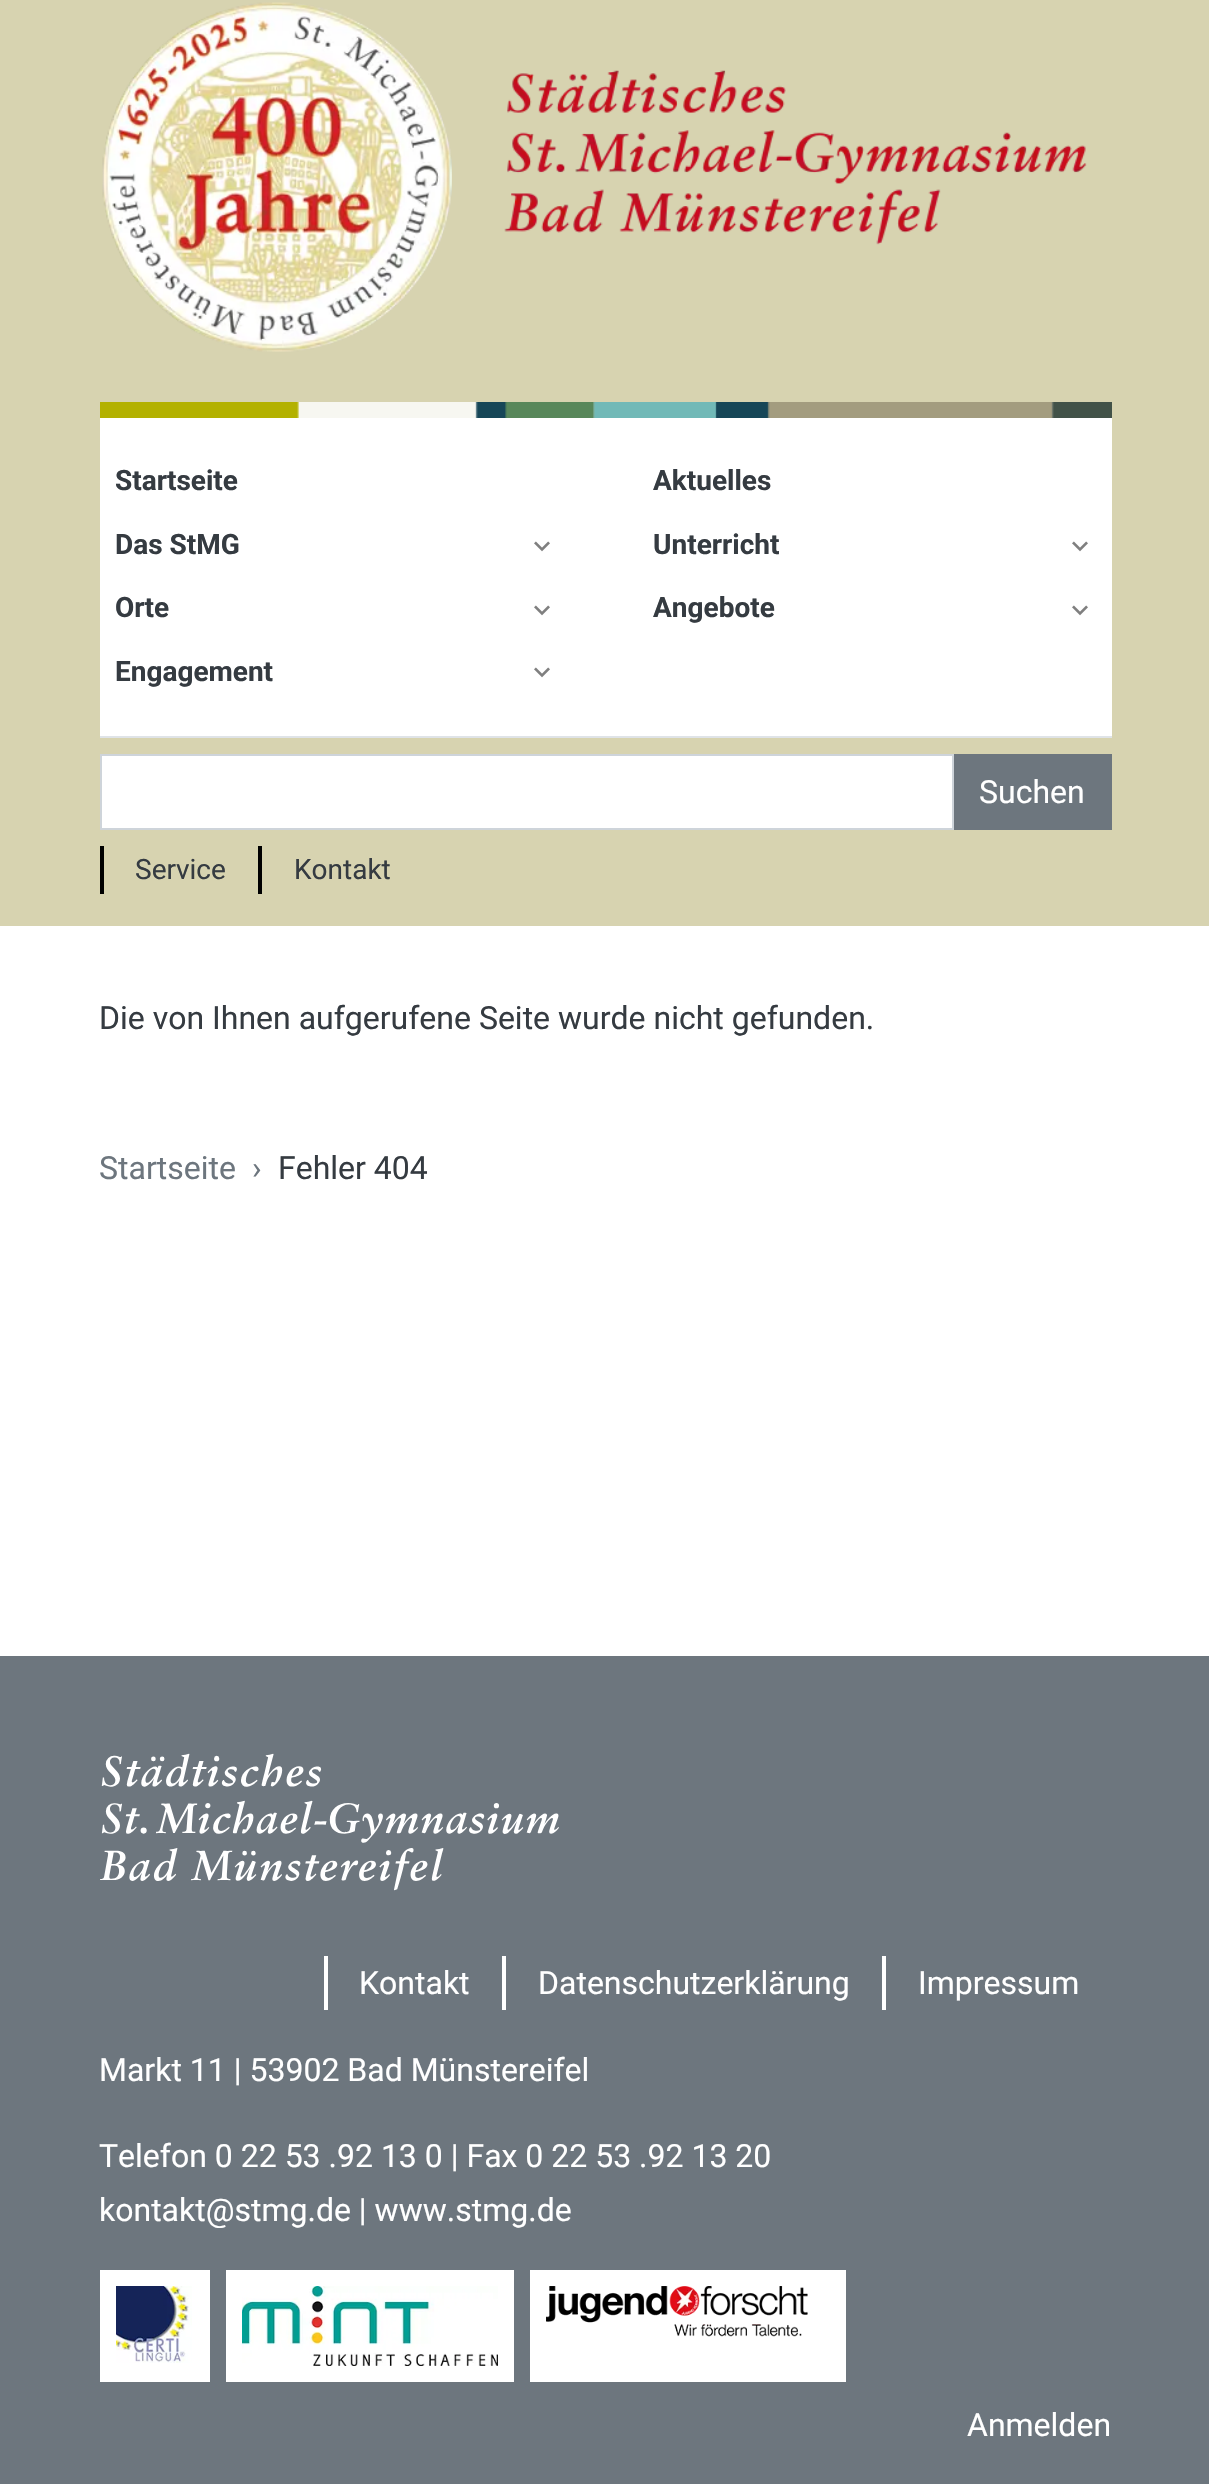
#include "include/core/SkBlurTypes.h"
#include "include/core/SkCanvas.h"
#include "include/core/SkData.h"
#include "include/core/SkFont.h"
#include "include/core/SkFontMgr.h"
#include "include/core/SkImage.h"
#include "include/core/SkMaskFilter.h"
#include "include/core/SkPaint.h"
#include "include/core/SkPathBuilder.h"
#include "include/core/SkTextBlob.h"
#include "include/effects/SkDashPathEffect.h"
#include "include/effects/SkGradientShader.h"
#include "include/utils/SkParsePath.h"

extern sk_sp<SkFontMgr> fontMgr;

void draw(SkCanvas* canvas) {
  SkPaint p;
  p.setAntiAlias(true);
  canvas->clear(SK_ColorWHITE);
  p.setColor(SkColorSetRGB(215, 211, 176));
  canvas->drawRect(SkRect::MakeLTRB(0, 0, 1209, 926), p);
  canvas->drawImageRect(SkImages::DeferredFromEncodedData(SkData::MakeFromFileName("images/1.png")), SkRect::MakeLTRB(102, 2, 1087, 352), SkSamplingOptions());
  p.setColor(SK_ColorWHITE);
  canvas->drawRect(SkRect::MakeLTRB(100, 402, 1112, 736), p);
  p.setColor(SkColorSetRGB(223, 227, 231));
  canvas->drawRect(SkRect::MakeLTRB(100, 736, 1112, 738), p);
  canvas->drawImageRect(SkImages::DeferredFromEncodedData(SkData::MakeFromFileName("images/2.png")), SkRect::MakeLTRB(100, 402, 1112, 418), SkSamplingOptions());
  canvas->drawImageRect(SkImages::DeferredFromEncodedData(SkData::MakeFromFileName("images/3.png")), SkRect::MakeLTRB(534, 541, 550, 552), SkSamplingOptions());
  canvas->drawImageRect(SkImages::DeferredFromEncodedData(SkData::MakeFromFileName("images/3.png")), SkRect::MakeLTRB(1072, 541, 1088, 552), SkSamplingOptions());
  canvas->drawImageRect(SkImages::DeferredFromEncodedData(SkData::MakeFromFileName("images/3.png")), SkRect::MakeLTRB(534, 605, 550, 616), SkSamplingOptions());
  canvas->drawImageRect(SkImages::DeferredFromEncodedData(SkData::MakeFromFileName("images/3.png")), SkRect::MakeLTRB(1072, 605, 1088, 616), SkSamplingOptions());
  canvas->drawImageRect(SkImages::DeferredFromEncodedData(SkData::MakeFromFileName("images/3.png")), SkRect::MakeLTRB(534, 667, 550, 678), SkSamplingOptions());
  p.setColor(SK_ColorWHITE);
  canvas->drawRect(SkRect::MakeLTRB(101, 755, 953, 829), p);
  p.setStyle(SkPaint::kStroke_Style);
  p.setStrokeWidth(2);
  p.setColor(SkColorSetRGB(206, 212, 218));
  canvas->drawRect(SkRect::MakeLTRB(101, 755, 953, 829), p);
  p.setStyle(SkPaint::kFill_Style);
  p.setColor(SkColorSetRGB(109, 118, 126));
  canvas->drawRect(SkRect::MakeLTRB(954, 754, 1112, 830), p);
  p.setColor(SK_ColorBLACK);
  canvas->drawRect(SkRect::MakeLTRB(100, 846, 104, 894), p);
  canvas->drawRect(SkRect::MakeLTRB(258, 846, 262, 894), p);
  p.setColor(SkColorSetRGB(109, 118, 126));
  canvas->drawRect(SkRect::MakeLTRB(0, 1656, 1209, 2484), p);
  canvas->drawImageRect(SkImages::DeferredFromEncodedData(SkData::MakeFromFileName("images/4.png")), SkRect::MakeLTRB(100, 1753, 559, 1891), SkSamplingOptions());
  p.setColor(SK_ColorWHITE);
  canvas->drawRect(SkRect::MakeLTRB(324, 1956, 328, 2010), p);
  canvas->drawRect(SkRect::MakeLTRB(502, 1956, 506, 2010), p);
  canvas->drawRect(SkRect::MakeLTRB(882, 1956, 886, 2010), p);
  canvas->drawRect(SkRect::MakeLTRB(100, 2270, 210, 2382), p);
  canvas->drawImageRect(SkImages::DeferredFromEncodedData(SkData::MakeFromFileName("images/5.png")), SkRect::MakeLTRB(116, 2286, 192, 2363), SkSamplingOptions());
  canvas->drawRect(SkRect::MakeLTRB(226, 2270, 514, 2382), p);
  canvas->drawImageRect(SkImages::DeferredFromEncodedData(SkData::MakeFromFileName("images/6.png")), SkRect::MakeLTRB(242, 2286, 498, 2366), SkSamplingOptions());
  canvas->drawRect(SkRect::MakeLTRB(530, 2270, 846, 2382), p);
  canvas->drawImageRect(SkImages::DeferredFromEncodedData(SkData::MakeFromFileName("images/7.png")), SkRect::MakeLTRB(546, 2286, 808, 2337), SkSamplingOptions());
  SkFont font1(fontMgr->matchFamilyStyle("Roboto", SkFontStyle::Bold()), 28);
  font1.setSubpixel(true);
  p.setColor(SkColorSetRGB(53, 59, 65));
  canvas->drawString("Startseite", 115, 490, font1, p);
  canvas->drawString("Aktuelles", 653, 490, font1, p);
  canvas->drawString("Das StMG", 115, 554, font1, p);
  canvas->drawString("Unterricht", 653, 554, font1, p);
  canvas->drawString("Orte", 115, 617, font1, p);
  canvas->drawString("Angebote", 653, 617, font1, p);
  canvas->drawString("Engagement", 115, 681, font1, p);
  SkFont font2(fontMgr->matchFamilyStyle("Roboto", SkFontStyle::Normal()), 32);
  font2.setSubpixel(true);
  p.setColor(SK_ColorWHITE);
  canvas->drawString("Suchen", 979, 803, font2, p);
  SkFont font3(fontMgr->matchFamilyStyle("Roboto", SkFontStyle::Normal()), 28);
  font3.setSubpixel(true);
  p.setColor(SkColorSetRGB(53, 59, 65));
  canvas->drawString("Service", 135, 879, font3, p);
  canvas->drawString("Kontakt", 294, 879, font3, p);
  canvas->drawString("Die von Ihnen aufgerufene Seite wurde nicht gefunden.", 99, 1029, font2, p);
  p.setColor(SkColorSetRGB(109, 118, 126));
  canvas->drawString("Startseite", 99, 1179, font2, p);
  canvas->drawString("›", 252, 1179, font2, p);
  p.setColor(SkColorSetRGB(53, 59, 65));
  canvas->drawString("Fehler 404", 278, 1179, font2, p);
  p.setColor(SK_ColorWHITE);
  canvas->drawString("Kontakt", 359, 1994, font2, p);
  canvas->drawString("Datenschutzerklärung", 538, 1994, font2, p);
  canvas->drawString("Impressum", 918, 1994, font2, p);
  canvas->drawString("Markt 11 | 53902 Bad Münstereifel", 99, 2081, font2, p);
  canvas->drawString("Telefon 0 22 53 .92 13 0 | Fax 0 22 53 .92 13 20", 99, 2167, font2, p);
  canvas->drawString("kontakt@stmg.de | www.stmg.de", 99, 2221, font2, p);
  canvas->drawString("Anmelden", 967, 2436, font2, p);
}
